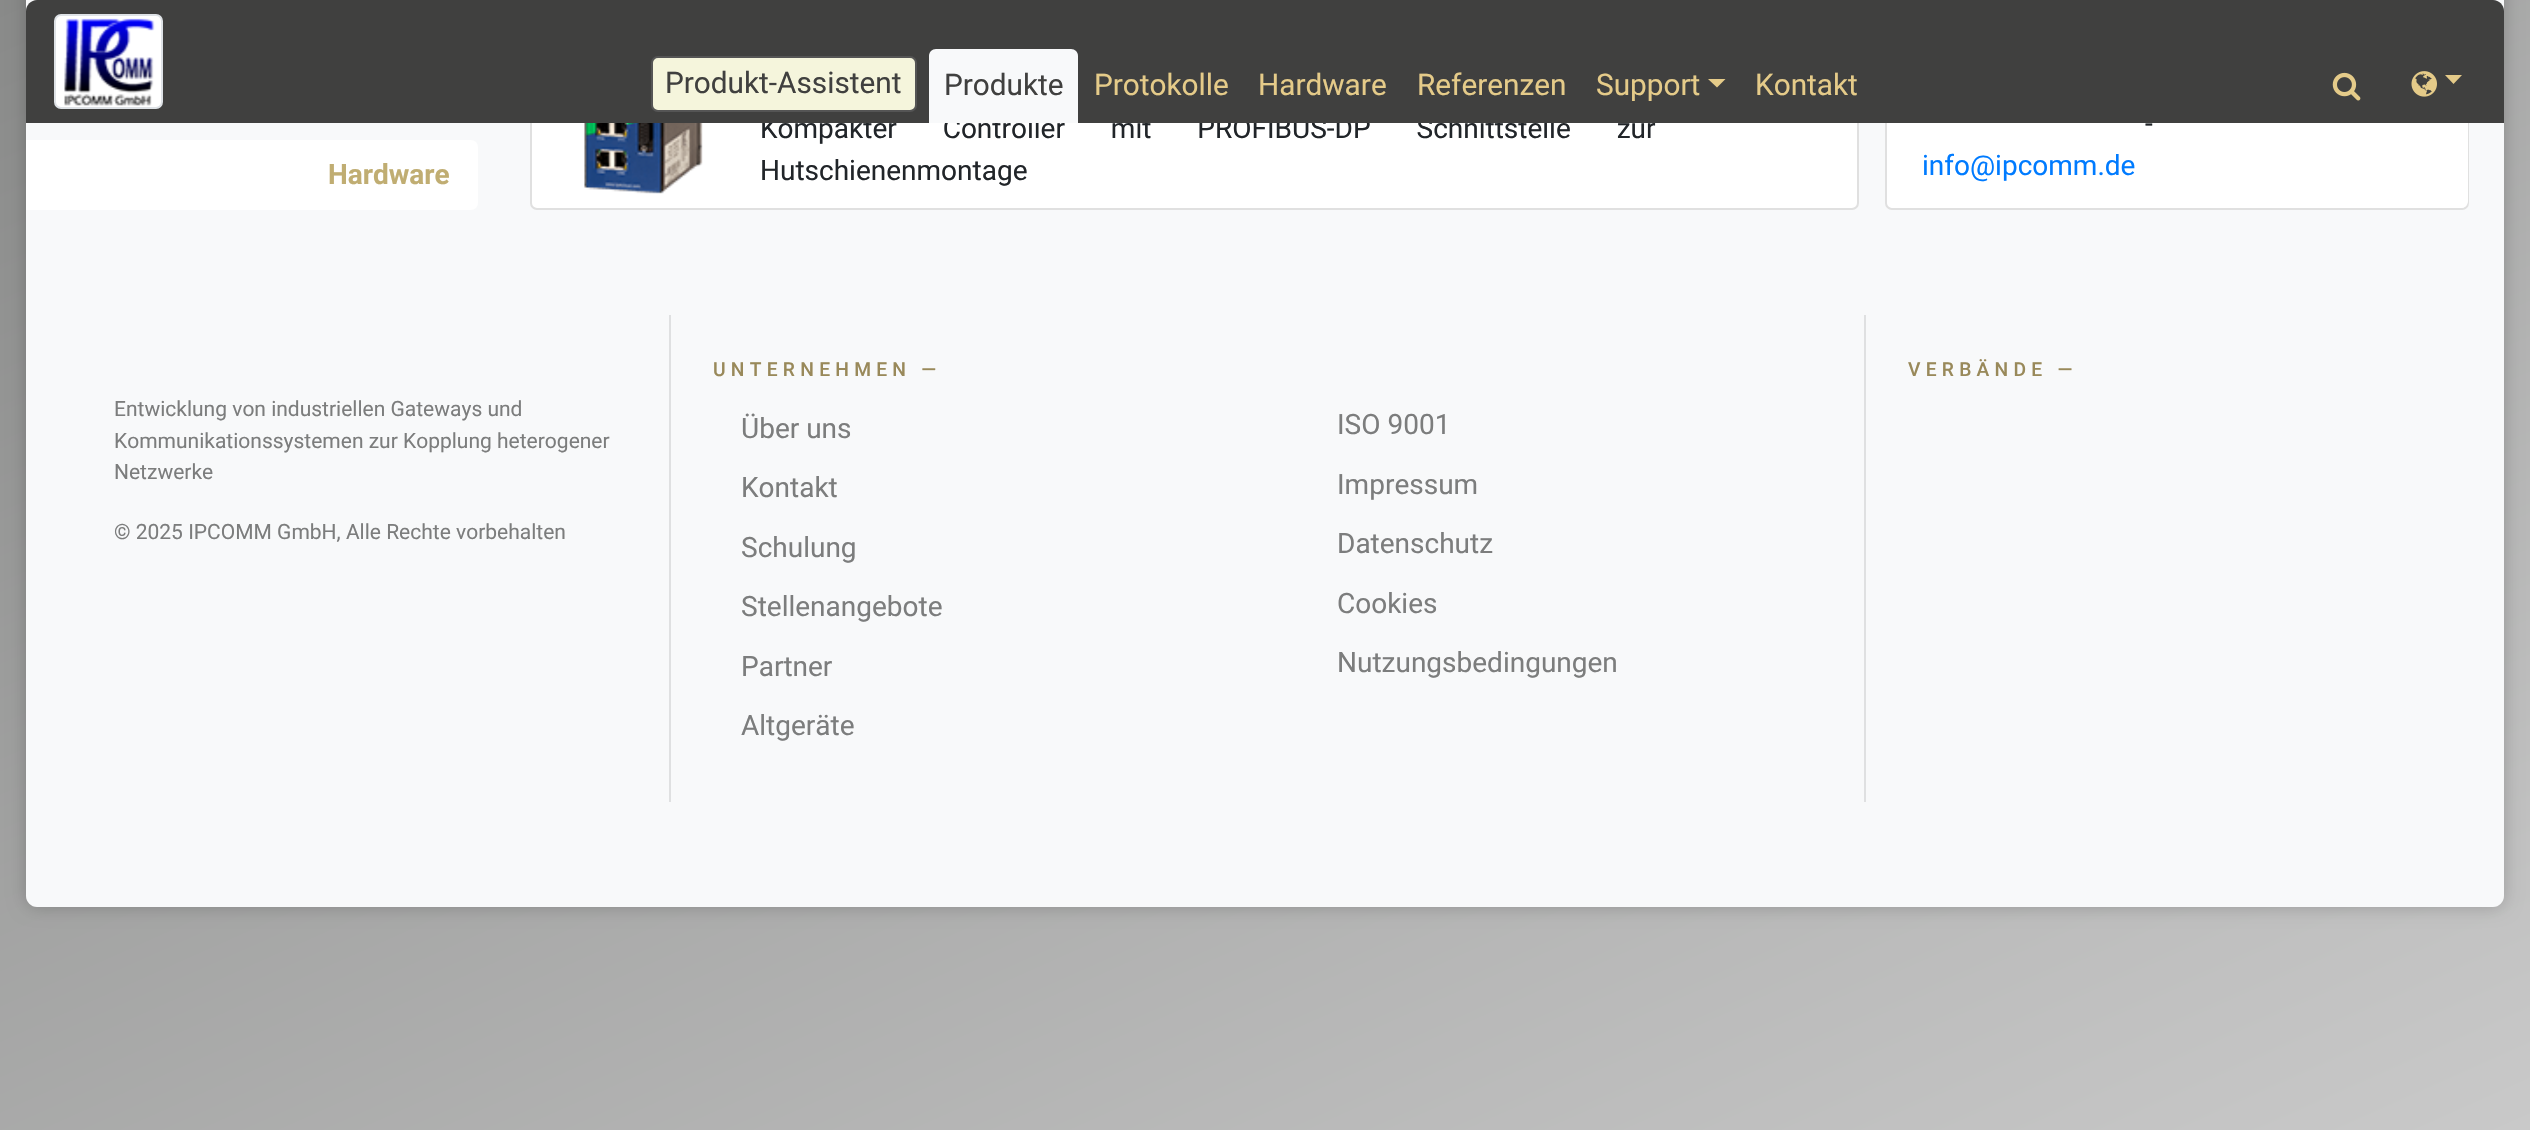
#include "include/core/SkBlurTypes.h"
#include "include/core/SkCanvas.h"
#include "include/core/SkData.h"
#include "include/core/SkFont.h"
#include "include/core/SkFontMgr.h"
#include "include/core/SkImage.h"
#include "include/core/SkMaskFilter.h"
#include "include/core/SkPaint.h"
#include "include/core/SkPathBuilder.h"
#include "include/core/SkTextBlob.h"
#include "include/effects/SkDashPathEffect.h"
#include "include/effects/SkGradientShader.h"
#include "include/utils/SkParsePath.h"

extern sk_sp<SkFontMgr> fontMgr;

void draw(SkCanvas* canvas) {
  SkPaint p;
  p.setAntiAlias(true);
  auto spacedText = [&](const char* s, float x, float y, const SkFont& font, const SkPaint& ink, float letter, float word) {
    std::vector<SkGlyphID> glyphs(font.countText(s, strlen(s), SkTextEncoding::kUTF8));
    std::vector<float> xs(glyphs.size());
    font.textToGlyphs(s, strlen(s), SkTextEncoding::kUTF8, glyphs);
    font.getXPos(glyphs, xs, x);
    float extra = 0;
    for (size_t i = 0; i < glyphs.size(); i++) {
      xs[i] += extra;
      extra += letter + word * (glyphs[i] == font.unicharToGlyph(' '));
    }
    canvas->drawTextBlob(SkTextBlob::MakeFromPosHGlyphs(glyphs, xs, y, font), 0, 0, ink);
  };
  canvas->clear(SK_ColorWHITE);
  {
    const SkColor colors[] = {SkColorSetRGB(137, 138, 137), SkColorSetRGB(201, 201, 201)};
    const float stops[] = {0, 1};
    const SkPoint ends[] = {{844, -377}, {1686, 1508}};
    p.setShader(SkGradientShader::MakeLinear(ends, colors, stops, 2, SkTileMode::kClamp));
    p.setAlpha(255);
  }
  canvas->drawRect(SkRect::MakeLTRB(0, 0, 2530, 1130), p);
  p.setShader(nullptr);
  p.setColor(SkColorSetARGB(51, 0, 0, 0));
  p.setMaskFilter(SkMaskFilter::MakeBlur(kNormal_SkBlurStyle, 9));
  canvas->drawRoundRect(SkRect::MakeLTRB(26, -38, 2504, 907), 11, 11, p);
  p.setMaskFilter(nullptr);
  p.setColor(SkColorSetRGB(248, 249, 250));
  canvas->drawRect(SkRect::MakeLTRB(26, 0, 2504, 210), p);
  p.setColor(SK_ColorWHITE);
  canvas->drawPath(SkPathBuilder().moveTo(26, 140).lineTo(471, 140).cubicTo(475, 140, 478, 143, 478, 147).lineTo(478, 203).cubicTo(478, 207, 475, 210, 471, 210).lineTo(26, 210).close().detach(), p);
  canvas->drawRoundRect(SkRect::MakeLTRB(530, 4, 1859, 210), 7, 7, p);
  p.setStyle(SkPaint::kStroke_Style);
  p.setStrokeWidth(2);
  p.setColor(SkColorSetARGB(31, 0, 0, 0));
  canvas->drawRoundRect(SkRect::MakeLTRB(531, 5, 1858, 209), 6, 6, p);
  p.setStyle(SkPaint::kFill_Style);
  p.setColor(SK_ColorWHITE);
  canvas->drawRoundRect(SkRect::MakeLTRB(558, 5, 1831, 208), 7, 7, p);
  canvas->drawImageRect(SkImages::DeferredFromEncodedData(SkData::MakeFromFileName("images/4.png")), SkRect::MakeLTRB(584, 123, 703, 194), SkSamplingOptions());
  canvas->drawRoundRect(SkRect::MakeLTRB(1885, -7, 2469, 210), 7, 7, p);
  p.setStyle(SkPaint::kStroke_Style);
  p.setColor(SkColorSetARGB(31, 0, 0, 0));
  canvas->drawRoundRect(SkRect::MakeLTRB(1886, -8, 2468, 209), 6, 6, p);
  p.setStyle(SkPaint::kFill_Style);
  p.setColor(SK_ColorWHITE);
  canvas->drawPath(SkPathBuilder().moveTo(1887, -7).lineTo(2468, -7).lineTo(2468, 201).cubicTo(2468, 205, 2465, 208, 2461, 208).lineTo(1894, 208).cubicTo(1890, 208, 1887, 205, 1887, 201).close().detach(), p);
  p.setColor(SkColorSetRGB(248, 249, 250));
  canvas->drawPath(SkPathBuilder().moveTo(26, 210).lineTo(2504, 210).lineTo(2504, 896).cubicTo(2504, 902, 2499, 907, 2493, 907).lineTo(37, 907).cubicTo(31, 907, 26, 902, 26, 896).close().detach(), p);
  p.setColor(SkColorSetRGB(223, 224, 225));
  canvas->drawRect(SkRect::MakeLTRB(669, 315, 671, 802), p);
  canvas->drawRect(SkRect::MakeLTRB(1864, 315, 1866, 802), p);
  SkFont font1(fontMgr->matchFamilyStyle("Roboto", SkFontStyle::Bold()), 28);
  font1.setSubpixel(true);
  p.setColor(SkColorSetRGB(192, 173, 114));
  canvas->drawString("Hardware", 328, 184, font1, p);
  SkFont font2(fontMgr->matchFamilyStyle("Roboto", SkFontStyle::Normal()), 28);
  font2.setSubpixel(true);
  p.setColor(SkColorSetRGB(33, 37, 41));
  spacedText("Kompakter Controller mit PROFIBUS-DP Schnittstelle zur", 760, 138, font2, p, 0, 39);
  p.setColor(SkColorSetRGB(64, 64, 63));
  canvas->drawPath(SkPathBuilder().moveTo(37, 0).lineTo(2493, 0).cubicTo(2499, 0, 2504, 5, 2504, 11).lineTo(2504, 123).lineTo(26, 123).lineTo(26, 11).cubicTo(26, 5, 31, 0, 37, 0).close().detach(), p);
  canvas->drawImageRect(SkImages::DeferredFromEncodedData(SkData::MakeFromFileName("images/3.png")), SkRect::MakeLTRB(2411, 71, 2437, 97), SkSamplingOptions());
  p.setColor(SkColorSetRGB(229, 203, 137));
  canvas->drawPath(SkPathBuilder().moveTo(2445, 75).lineTo(2462, 75).lineTo(2453.5f, 84).close().detach(), p);
  canvas->drawImageRect(SkImages::DeferredFromEncodedData(SkData::MakeFromFileName("images/2.png")), SkRect::MakeLTRB(2332, 72, 2361, 101), SkSamplingOptions());
  canvas->drawPath(SkPathBuilder().moveTo(1708, 79).lineTo(1725.5f, 79).lineTo(1717, 87.5f).close().detach(), p);
  SkFont font3(fontMgr->matchFamilyStyle("Roboto", SkFontStyle::Normal()), 29.75f);
  font3.setSubpixel(true);
  canvas->drawString("Support", 1596, 95, font3, p);
  p.setColor(SkColorSetRGB(245, 245, 220));
  canvas->drawRoundRect(SkRect::MakeLTRB(652, 57, 916, 111), 6, 6, p);
  p.setStyle(SkPaint::kStroke_Style);
  p.setColor(SkColorSetRGB(85, 85, 85));
  canvas->drawRoundRect(SkRect::MakeLTRB(652, 57, 916, 111), 6, 6, p);
  p.setStyle(SkPaint::kFill_Style);
  p.setColor(SkColorSetRGB(64, 64, 63));
  canvas->drawString("Produkt-Assistent", 665, 93, font3, p);
  p.setColor(SkColorSetRGB(229, 203, 137));
  canvas->drawString("Kontakt", 1755, 95, font3, p);
  canvas->drawString("Referenzen", 1417, 95, font3, p);
  canvas->drawString("Hardware", 1258, 95, font3, p);
  canvas->drawString("Protokolle", 1094, 95, font3, p);
  p.setColor(SkColorSetRGB(248, 249, 250));
  canvas->drawPath(SkPathBuilder().moveTo(936, 49).lineTo(1071, 49).cubicTo(1075, 49, 1078, 52, 1078, 56).lineTo(1078, 123).lineTo(929, 123).lineTo(929, 56).cubicTo(929, 52, 932, 49, 936, 49).close().detach(), p);
  p.setColor(SkColorSetRGB(64, 64, 63));
  canvas->drawString("Produkte", 944, 95, font3, p);
  p.setColor(SK_ColorWHITE);
  canvas->drawRoundRect(SkRect::MakeLTRB(55, 15, 162, 108), 6, 6, p);
  p.setStyle(SkPaint::kStroke_Style);
  p.setColor(SkColorSetRGB(222, 226, 230));
  canvas->drawRoundRect(SkRect::MakeLTRB(55, 15, 162, 108), 6, 6, p);
  canvas->drawImageRect(SkImages::DeferredFromEncodedData(SkData::MakeFromFileName("images/1.png")), SkRect::MakeLTRB(64, 18, 155, 106), SkSamplingOptions());
  p.setStyle(SkPaint::kFill_Style);
  p.setColor(SkColorSetRGB(33, 37, 41));
  canvas->drawString("Hutschienenmontage", 760, 180, font2, p);
  canvas->drawString("-", 2145, 133, font2, p);
  p.setColor(SkColorSetRGB(0, 123, 255));
  canvas->drawString("info@ipcomm.de", 1922, 175, font2, p);
  SkFont font4(fontMgr->matchFamilyStyle("Roboto", SkFontStyle::Normal()), 21);
  font4.setSubpixel(true);
  p.setColor(SkColorSetRGB(124, 125, 125));
  canvas->drawString("Entwicklung von industriellen Gateways und", 114, 416, font4, p);
  canvas->drawString("Kommunikationssystemen zur Kopplung heterogener", 114, 448, font4, p);
  canvas->drawString("Netzwerke", 114, 479, font4, p);
  canvas->drawString("© 2025 IPCOMM GmbH, Alle Rechte vorbehalten", 114, 539, font4, p);
  SkFont font5(fontMgr->matchFamilyStyle("Roboto", SkFontStyle(500, SkFontStyle::kNormal_Width, SkFontStyle::kUpright_Slant)), 19.25f);
  font5.setSubpixel(true);
  p.setColor(SkColorSetRGB(153, 137, 90));
  spacedText("UNTERNEHMEN —", 713, 376, font5, p, 5.25f, 0);
  p.setColor(SkColorSetRGB(124, 125, 125));
  canvas->drawString("Über uns", 741, 438, font2, p);
  canvas->drawString("Kontakt", 741, 497, font2, p);
  canvas->drawString("Schulung", 741, 557, font2, p);
  canvas->drawString("Stellenangebote", 741, 616, font2, p);
  canvas->drawString("Partner", 741, 676, font2, p);
  canvas->drawString("Altgeräte", 741, 735, font2, p);
  canvas->drawString("ISO 9001", 1337, 434, font2, p);
  canvas->drawString("Impressum", 1337, 494, font2, p);
  canvas->drawString("Datenschutz", 1337, 553, font2, p);
  canvas->drawString("Cookies", 1337, 613, font2, p);
  canvas->drawString("Nutzungsbedingungen", 1337, 672, font2, p);
  p.setColor(SkColorSetRGB(153, 137, 90));
  spacedText("VERBÄNDE —", 1908, 376, font5, p, 5.25f, 0);
}
